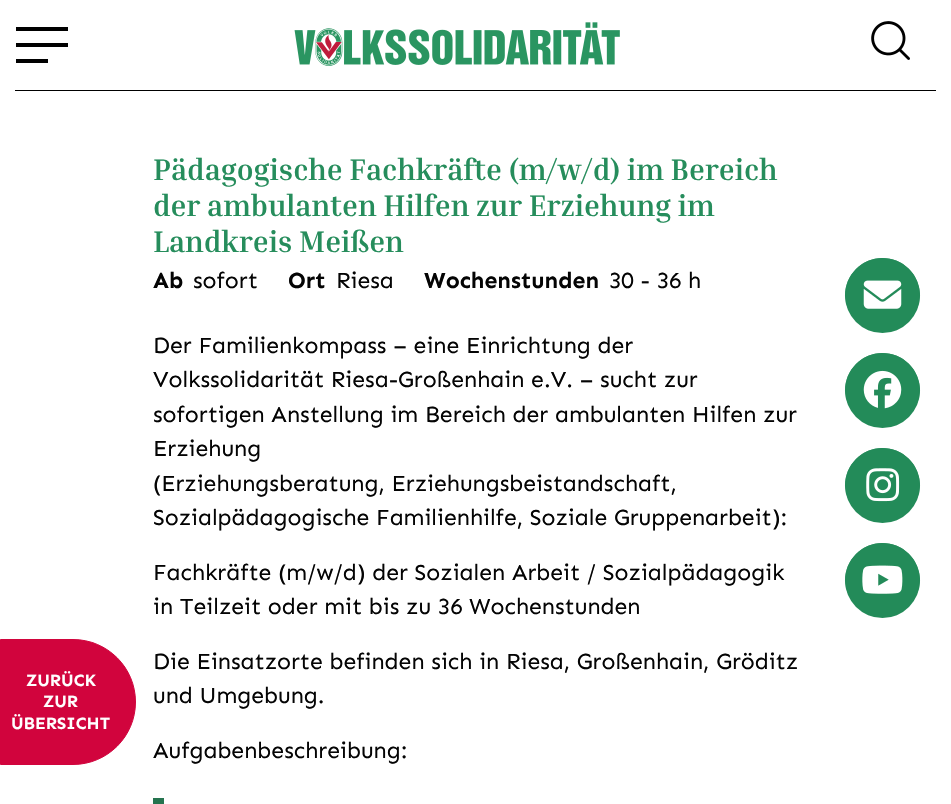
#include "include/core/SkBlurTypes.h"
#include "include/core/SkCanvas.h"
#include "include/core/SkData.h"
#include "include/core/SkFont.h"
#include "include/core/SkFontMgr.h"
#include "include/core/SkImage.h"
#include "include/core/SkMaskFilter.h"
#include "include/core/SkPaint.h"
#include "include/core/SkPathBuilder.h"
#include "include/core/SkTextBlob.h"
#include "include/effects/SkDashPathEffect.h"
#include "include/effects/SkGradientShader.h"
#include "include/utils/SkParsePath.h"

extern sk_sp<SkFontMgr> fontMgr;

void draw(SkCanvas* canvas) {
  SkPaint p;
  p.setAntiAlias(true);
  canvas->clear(SK_ColorWHITE);
  p.setColor(SK_ColorBLACK);
  canvas->drawRect(SkRect::MakeLTRB(15, 90, 936, 91), p);
  canvas->drawRect(SkRect::MakeLTRB(16, 27, 68, 31), p);
  canvas->drawRect(SkRect::MakeLTRB(16, 43, 68, 47), p);
  canvas->drawRect(SkRect::MakeLTRB(16, 59, 48, 63), p);
  canvas->drawImageRect(SkImages::DeferredFromEncodedData(SkData::MakeFromFileName("images/1.png")), SkRect::MakeLTRB(294, 22, 620, 66), SkSamplingOptions());
  canvas->drawImageRect(SkImages::DeferredFromEncodedData(SkData::MakeFromFileName("images/2.png")), SkRect::MakeLTRB(871, 21, 910, 60), SkSamplingOptions());
  p.setColor(SkColorSetRGB(209, 4, 61));
  canvas->drawPath(SkPathBuilder().moveTo(0.5f, 639.5f).lineTo(73, 639.5f).cubicTo(107.5f, 639.5f, 135.5f, 667.5f, 135.5f, 702).cubicTo(135.5f, 736.5f, 107.5f, 764.5f, 73, 764.5f).lineTo(0.5f, 764.5f).close().detach(), p);
  p.setStyle(SkPaint::kStroke_Style);
  p.setStrokeWidth(1);
  canvas->drawPath(SkPathBuilder().moveTo(0.5f, 639.5f).lineTo(73, 639.5f).cubicTo(107.5f, 639.5f, 135.5f, 667.5f, 135.5f, 702).cubicTo(135.5f, 736.5f, 107.5f, 764.5f, 73, 764.5f).lineTo(0.5f, 764.5f).close().detach(), p);
  p.setStyle(SkPaint::kFill_Style);
  p.setColor(SkColorSetRGB(37, 116, 79));
  canvas->drawRect(SkRect::MakeLTRB(153, 798, 164, 804), p);
  p.setColor(SkColorSetRGB(35, 139, 89));
  canvas->drawCircle(882.5f, 295.5f, 37.5f, p);
  canvas->drawPath(SkPathBuilder().moveTo(882, 332).cubicTo(860, 331, 846, 314, 845, 295).cubicTo(845, 275, 862, 258, 882, 258).cubicTo(903, 258, 919, 274, 920, 294).cubicTo(920, 313, 905, 331, 882, 332).close().detach(), p);
  canvas->drawImageRect(SkImages::DeferredFromEncodedData(SkData::MakeFromFileName("images/3.png")), SkRect::MakeLTRB(863, 280, 902, 309), SkSamplingOptions());
  canvas->drawCircle(882.5f, 390.5f, 37.5f, p);
  canvas->drawPath(SkPathBuilder().moveTo(882, 427).cubicTo(860, 426, 846, 409, 845, 390).cubicTo(845, 370, 862, 353, 882, 353).cubicTo(903, 353, 919, 369, 920, 389).cubicTo(920, 408, 905, 426, 882, 427).close().detach(), p);
  canvas->drawImageRect(SkImages::DeferredFromEncodedData(SkData::MakeFromFileName("images/4.png")), SkRect::MakeLTRB(863, 370, 902, 409), SkSamplingOptions());
  canvas->drawCircle(882.5f, 485.5f, 37.5f, p);
  canvas->drawPath(SkPathBuilder().moveTo(882, 522).cubicTo(860, 521, 846, 504, 845, 485).cubicTo(845, 465, 862, 448, 882, 448).cubicTo(903, 448, 919, 464, 920, 484).cubicTo(920, 503, 905, 521, 882, 522).close().detach(), p);
  canvas->drawImageRect(SkImages::DeferredFromEncodedData(SkData::MakeFromFileName("images/5.png")), SkRect::MakeLTRB(866, 468, 900, 502), SkSamplingOptions());
  canvas->drawCircle(882.5f, 580.5f, 37.5f, p);
  canvas->drawPath(SkPathBuilder().moveTo(882, 617).cubicTo(860, 616, 846, 599, 845, 580).cubicTo(845, 560, 862, 543, 882, 543).cubicTo(903, 543, 919, 559, 920, 579).cubicTo(920, 598, 905, 616, 882, 617).close().detach(), p);
  canvas->drawImageRect(SkImages::DeferredFromEncodedData(SkData::MakeFromFileName("images/6.png")), SkRect::MakeLTRB(862, 565, 903, 594), SkSamplingOptions());
  SkFont font1(fontMgr->matchFamilyStyle("Sen", SkFontStyle::Bold()), 17.25f);
  font1.setSubpixel(true);
  p.setColor(SK_ColorWHITE);
  canvas->drawString("ZURÜCK", 26, 686, font1, p);
  canvas->drawString("ZUR", 43, 707, font1, p);
  canvas->drawString("ÜBERSICHT", 11, 729, font1, p);
  SkFont font2(fontMgr->matchFamilyStyle("Inria Serif", SkFontStyle::Bold()), 30);
  font2.setSubpixel(true);
  p.setColor(SkColorSetRGB(38, 141, 92));
  canvas->drawString("Pädagogische Fachkräfte (m/w/d) im Bereich", 153, 180, font2, p);
  canvas->drawString("der ambulanten Hilfen zur Erziehung im", 153, 216, font2, p);
  canvas->drawString("Landkreis Meißen", 153, 252, font2, p);
  SkFont font3(fontMgr->matchFamilyStyle("Sen", SkFontStyle::Bold()), 23);
  font3.setSubpixel(true);
  p.setColor(SkColorSetRGB(4, 4, 4));
  canvas->drawString("Ab", 153, 288, font3, p);
  SkFont font4(fontMgr->matchFamilyStyle("Sen", SkFontStyle::Normal()), 23);
  font4.setSubpixel(true);
  canvas->drawString("sofort", 193, 288, font4, p);
  canvas->drawString("Ort", 288, 288, font3, p);
  canvas->drawString("Riesa", 336, 288, font4, p);
  canvas->drawString("Wochenstunden", 424, 288, font3, p);
  canvas->drawString("30 - 36 h", 609, 288, font4, p);
  canvas->drawString("Der Familienkompass – eine Einrichtung der", 153, 353, font4, p);
  canvas->drawString("Volkssolidarität Riesa-Großenhain e.V. – sucht zur", 153, 387, font4, p);
  canvas->drawString("sofortigen Anstellung im Bereich der ambulanten Hilfen zur", 153, 422, font4, p);
  canvas->drawString("Erziehung", 153, 456, font4, p);
  canvas->drawString("(Erziehungsberatung, Erziehungsbeistandschaft,", 153, 491, font4, p);
  canvas->drawString("Sozialpädagogische Familienhilfe, Soziale Gruppenarbeit):", 153, 525, font4, p);
  canvas->drawString("Fachkräfte (m/w/d) der Sozialen Arbeit / Sozialpädagogik", 153, 580, font4, p);
  canvas->drawString("in Teilzeit oder mit bis zu 36 Wochenstunden", 153, 614, font4, p);
  canvas->drawString("Die Einsatzorte befinden sich in Riesa, Großenhain, Gröditz", 153, 669, font4, p);
  canvas->drawString("und Umgebung.", 153, 703, font4, p);
  canvas->drawString("Aufgabenbeschreibung:", 153, 758, font4, p);
}
